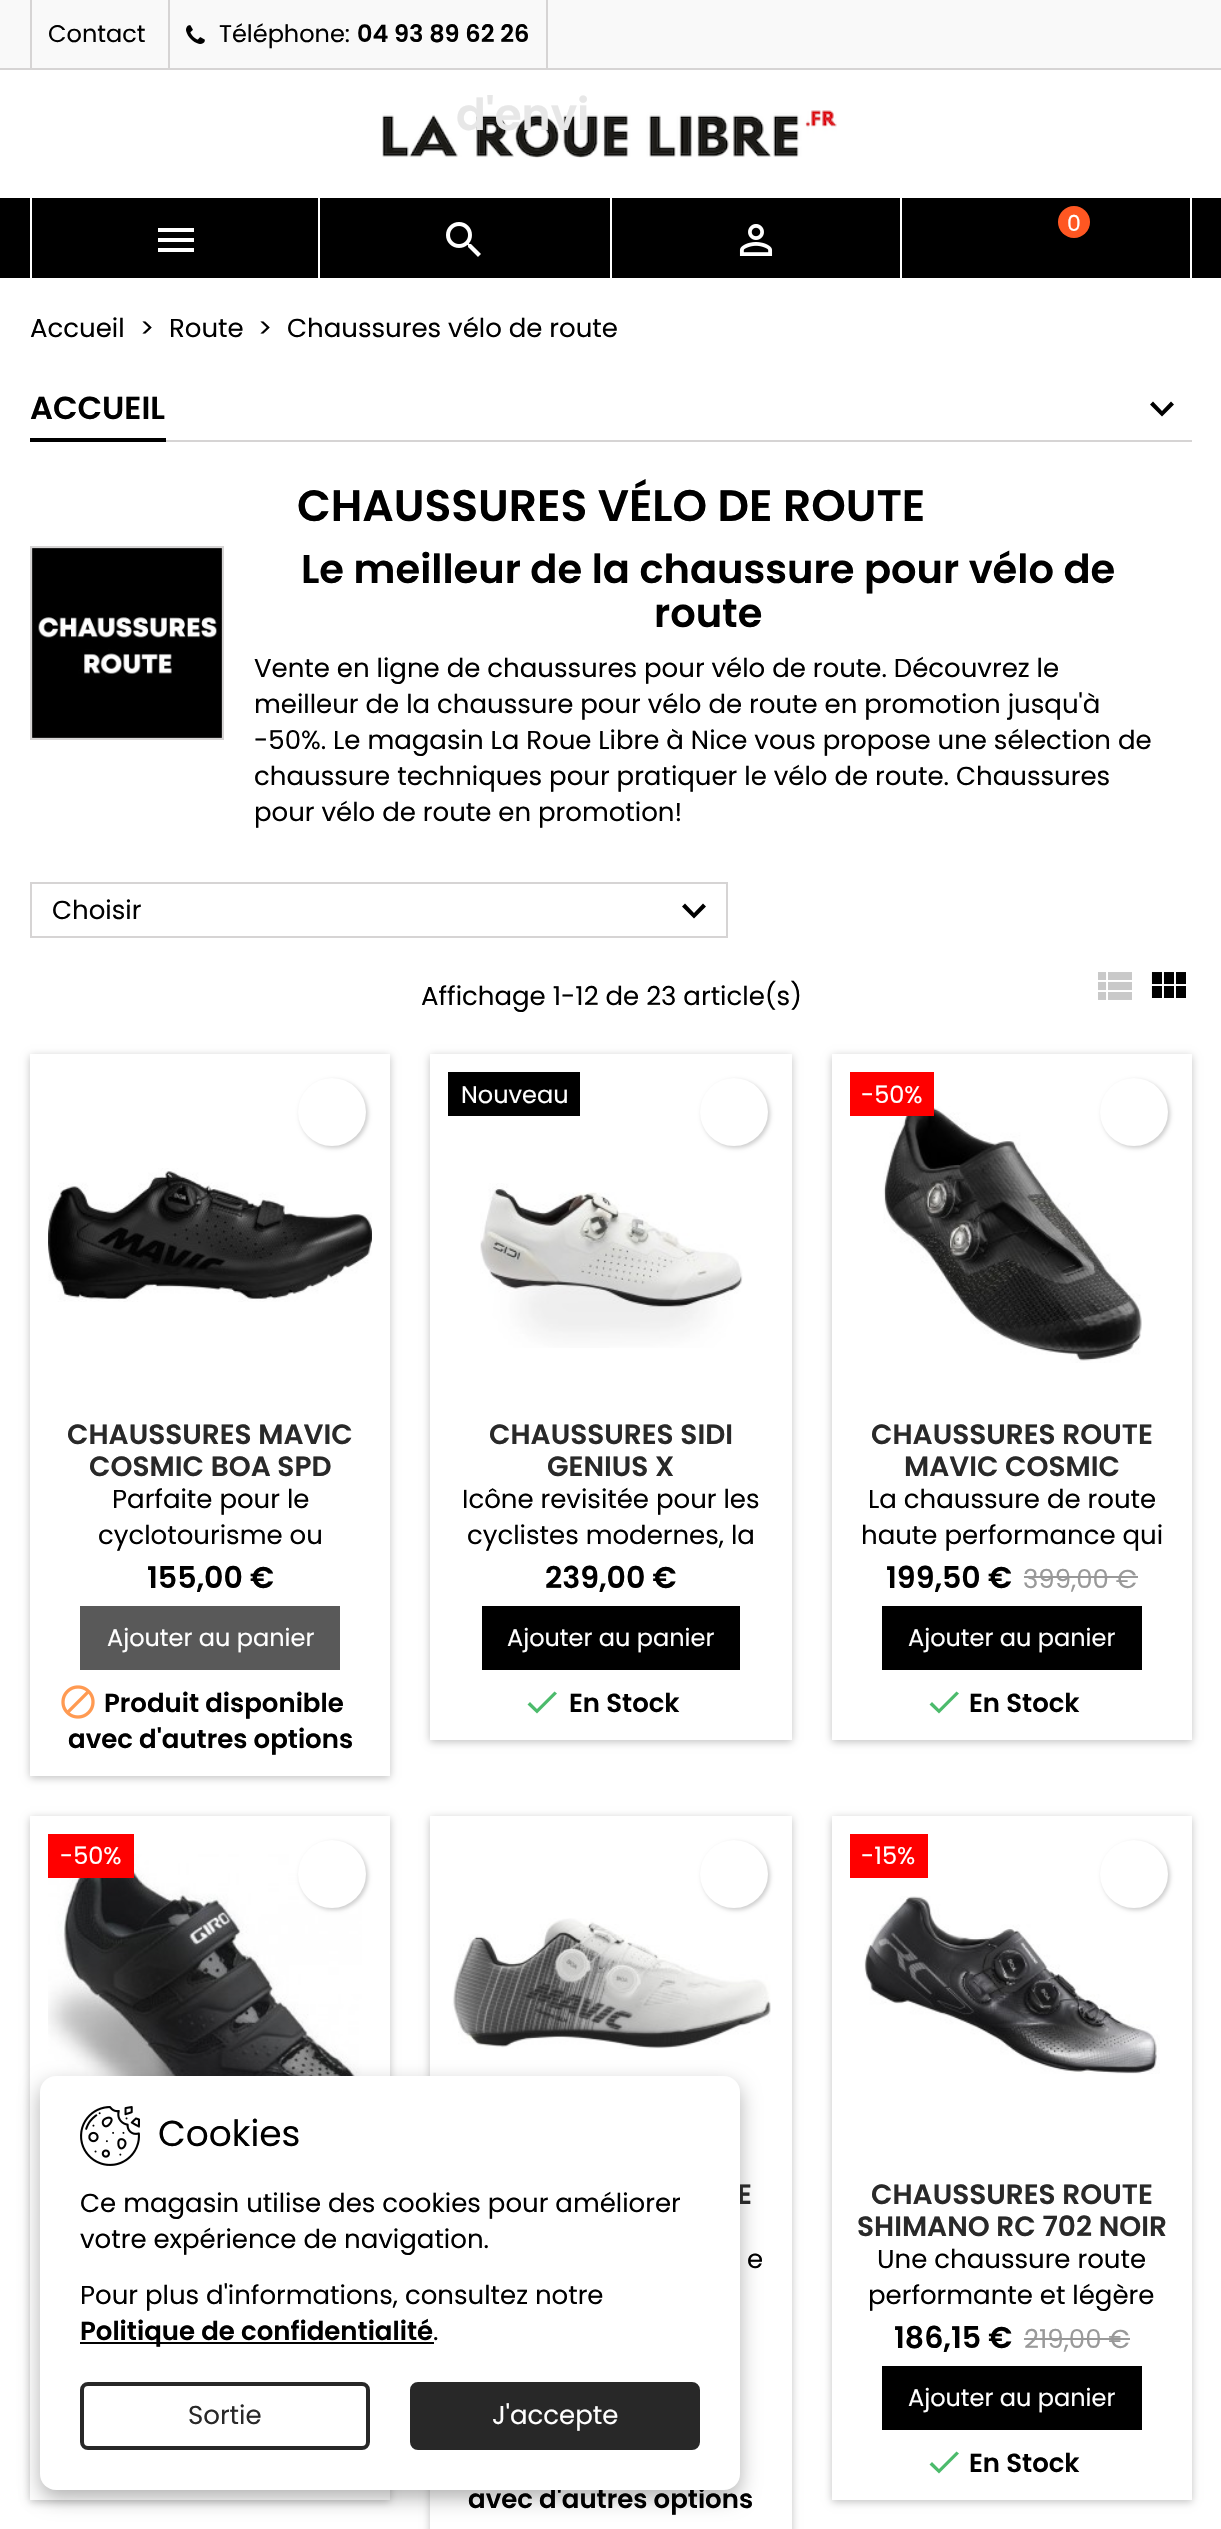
#include "include/core/SkBlurTypes.h"
#include "include/core/SkCanvas.h"
#include "include/core/SkData.h"
#include "include/core/SkFont.h"
#include "include/core/SkFontMgr.h"
#include "include/core/SkImage.h"
#include "include/core/SkMaskFilter.h"
#include "include/core/SkPaint.h"
#include "include/core/SkPathBuilder.h"
#include "include/core/SkTextBlob.h"
#include "include/effects/SkDashPathEffect.h"
#include "include/effects/SkGradientShader.h"
#include "include/utils/SkParsePath.h"

extern sk_sp<SkFontMgr> fontMgr;

void draw(SkCanvas* canvas) {
  SkPaint p;
  p.setAntiAlias(true);
  canvas->clear(SK_ColorWHITE);
  p.setColor(SkColorSetRGB(249, 249, 249));
  canvas->drawRect(SkRect::MakeLTRB(0, 0, 1221, 68), p);
  p.setColor(SkColorSetRGB(214, 212, 212));
  canvas->drawRect(SkRect::MakeLTRB(0, 68, 1221, 70), p);
  canvas->drawRect(SkRect::MakeLTRB(30, 0, 32, 68), p);
  canvas->drawRect(SkRect::MakeLTRB(546, 0, 548, 68), p);
  canvas->drawRect(SkRect::MakeLTRB(168, 0, 170, 68), p);
  canvas->drawImageRect(SkImages::DeferredFromEncodedData(SkData::MakeFromFileName("images/1.png")), SkRect::MakeLTRB(186, 25, 205, 44), SkSamplingOptions());
  canvas->drawImageRect(SkImages::DeferredFromEncodedData(SkData::MakeFromFileName("images/2.png")), SkRect::MakeLTRB(382, 110, 837, 158), SkSamplingOptions());
  p.setColor(SK_ColorBLACK);
  canvas->drawRect(SkRect::MakeLTRB(0, 198, 1221, 278), p);
  p.setColor(SK_ColorWHITE);
  canvas->drawRect(SkRect::MakeLTRB(318, 198, 320, 278), p);
  canvas->drawRect(SkRect::MakeLTRB(30, 198, 32, 278), p);
  canvas->drawPath(SkPathBuilder().moveTo(158, 228).lineTo(194, 228).lineTo(194, 232).lineTo(158, 232).close().moveTo(158, 242).lineTo(158, 238).lineTo(194, 238).lineTo(194, 242).close().moveTo(158, 252).lineTo(158, 248).lineTo(194, 248).lineTo(194, 252).close().detach(), p);
  canvas->drawRect(SkRect::MakeLTRB(610, 198, 612, 278), p);
  canvas->drawImageRect(SkImages::DeferredFromEncodedData(SkData::MakeFromFileName("images/3.png")), SkRect::MakeLTRB(446, 222, 481, 257), SkSamplingOptions());
  canvas->drawRect(SkRect::MakeLTRB(900, 198, 902, 278), p);
  canvas->drawImageRect(SkImages::DeferredFromEncodedData(SkData::MakeFromFileName("images/4.png")), SkRect::MakeLTRB(739, 224, 773, 256), SkSamplingOptions());
  canvas->drawRect(SkRect::MakeLTRB(1190, 198, 1192, 278), p);
  p.setColor(SkColorSetRGB(255, 87, 34));
  canvas->drawCircle(1074, 222, 16, p);
  canvas->save();
  canvas->clipPath(SkPathBuilder(SkPathFillType::kEvenOdd).moveTo(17, 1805).lineTo(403, 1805).lineTo(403, 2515).lineTo(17, 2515).close().moveTo(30, 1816).lineTo(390, 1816).lineTo(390, 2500).lineTo(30, 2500).close().detach(), true);
  p.setColor(SkColorSetARGB(61, 0, 0, 0));
  p.setMaskFilter(SkMaskFilter::MakeBlur(kNormal_SkBlurStyle, 4));
  canvas->drawRect(SkRect::MakeLTRB(30, 1818, 390, 2502), p);
  p.setMaskFilter(nullptr);
  canvas->restore();
  canvas->drawImageRect(SkImages::DeferredFromEncodedData(SkData::MakeFromFileName("images/13.png")), SkRect::MakeLTRB(48, 1854, 362, 2079), SkSamplingOptions());
  p.setColor(SkColorSetARGB(77, 0, 0, 0));
  p.setMaskFilter(SkMaskFilter::MakeBlur(kNormal_SkBlurStyle, 10));
  canvas->drawRoundRect(SkRect::MakeLTRB(40, 2084, 740, 2498), 16, 16, p);
  p.setMaskFilter(nullptr);
  p.setColor(SkColorSetRGB(214, 212, 212));
  canvas->drawRect(SkRect::MakeLTRB(166, 440, 1192, 442), p);
  p.setColor(SK_ColorBLACK);
  canvas->drawRect(SkRect::MakeLTRB(30, 438, 166, 442), p);
  canvas->drawPath(SkPathBuilder().moveTo(1153, 401.5f).lineTo(1162, 411).lineTo(1171, 401.5f).lineTo(1174, 404.5f).lineTo(1162, 416.5f).lineTo(1150, 404.5f).close().detach(), p);
  p.setStyle(SkPaint::kStroke_Style);
  p.setStrokeWidth(2);
  p.setColor(SkColorSetRGB(214, 212, 212));
  canvas->drawRect(SkRect::MakeLTRB(31, 547, 223, 739), p);
  canvas->drawImageRect(SkImages::DeferredFromEncodedData(SkData::MakeFromFileName("images/6.png")), SkRect::MakeLTRB(32, 548, 222, 738), SkSamplingOptions());
  canvas->drawRect(SkRect::MakeLTRB(31, 883, 727, 937), p);
  p.setStyle(SkPaint::kFill_Style);
  p.setColor(SK_ColorBLACK);
  canvas->drawPath(SkPathBuilder().moveTo(685, 903.5f).lineTo(694, 913).lineTo(703, 903.5f).lineTo(706, 906.5f).lineTo(694, 918.5f).lineTo(682, 906.5f).close().detach(), p);
  canvas->drawImageRect(SkImages::DeferredFromEncodedData(SkData::MakeFromFileName("images/7.png")), SkRect::MakeLTRB(1098, 972, 1132, 1000), SkSamplingOptions());
  canvas->drawImageRect(SkImages::DeferredFromEncodedData(SkData::MakeFromFileName("images/8.png")), SkRect::MakeLTRB(1151, 972, 1186, 998), SkSamplingOptions());
  canvas->save();
  canvas->clipPath(SkPathBuilder(SkPathFillType::kEvenOdd).moveTo(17, 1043).lineTo(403, 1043).lineTo(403, 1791).lineTo(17, 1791).close().moveTo(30, 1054).lineTo(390, 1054).lineTo(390, 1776).lineTo(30, 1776).close().detach(), true);
  p.setColor(SkColorSetARGB(61, 0, 0, 0));
  p.setMaskFilter(SkMaskFilter::MakeBlur(kNormal_SkBlurStyle, 4));
  canvas->drawRect(SkRect::MakeLTRB(30, 1056, 390, 1778), p);
  p.setMaskFilter(nullptr);
  canvas->restore();
  p.setColor(SkColorSetARGB(51, 0, 0, 0));
  p.setMaskFilter(SkMaskFilter::MakeBlur(kNormal_SkBlurStyle, 2));
  canvas->drawRoundRect(SkRect::MakeLTRB(300, 1080, 368, 1148), 34, 34, p);
  p.setMaskFilter(nullptr);
  p.setColor(SK_ColorWHITE);
  canvas->drawCircle(332, 1112, 34, p);
  canvas->drawImageRect(SkImages::DeferredFromEncodedData(SkData::MakeFromFileName("images/9.png")), SkRect::MakeLTRB(48, 1168, 372, 1302), SkSamplingOptions());
  p.setColor(SkColorSetRGB(89, 89, 89));
  canvas->drawRect(SkRect::MakeLTRB(80, 1606, 340, 1670), p);
  canvas->drawImageRect(SkImages::DeferredFromEncodedData(SkData::MakeFromFileName("images/10.png")), SkRect::MakeLTRB(61, 1685, 95, 1719), SkSamplingOptions());
  canvas->save();
  canvas->clipPath(SkPathBuilder(SkPathFillType::kEvenOdd).moveTo(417, 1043).lineTo(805, 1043).lineTo(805, 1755).lineTo(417, 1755).close().moveTo(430, 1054).lineTo(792, 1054).lineTo(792, 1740).lineTo(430, 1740).close().detach(), true);
  p.setColor(SkColorSetARGB(61, 0, 0, 0));
  p.setMaskFilter(SkMaskFilter::MakeBlur(kNormal_SkBlurStyle, 4));
  canvas->drawRect(SkRect::MakeLTRB(430, 1056, 792, 1742), p);
  p.setMaskFilter(nullptr);
  canvas->restore();
  p.setColor(SK_ColorBLACK);
  canvas->drawRect(SkRect::MakeLTRB(448, 1072, 580, 1116), p);
  canvas->drawImageRect(SkImages::DeferredFromEncodedData(SkData::MakeFromFileName("images/11.png")), SkRect::MakeLTRB(480, 1183, 743, 1348), SkSamplingOptions());
  p.setColor(SkColorSetARGB(51, 0, 0, 0));
  p.setMaskFilter(SkMaskFilter::MakeBlur(kNormal_SkBlurStyle, 2));
  canvas->drawRoundRect(SkRect::MakeLTRB(702, 1080, 770, 1148), 34, 34, p);
  p.setMaskFilter(nullptr);
  p.setColor(SK_ColorWHITE);
  canvas->drawCircle(734, 1112, 34, p);
  p.setColor(SK_ColorBLACK);
  canvas->drawRect(SkRect::MakeLTRB(482, 1606, 740, 1670), p);
  p.setColor(SkColorSetRGB(76, 187, 108));
  canvas->drawPath(SkPathBuilder().moveTo(537, 1709).lineTo(554.5f, 1691.5f).lineTo(557, 1693.5f).lineTo(537, 1713.5f).lineTo(527.5f, 1704.5f).lineTo(530, 1702).close().detach(), p);
  canvas->save();
  canvas->clipPath(SkPathBuilder(SkPathFillType::kEvenOdd).moveTo(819, 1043).lineTo(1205, 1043).lineTo(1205, 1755).lineTo(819, 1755).close().moveTo(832, 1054).lineTo(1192, 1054).lineTo(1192, 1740).lineTo(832, 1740).close().detach(), true);
  p.setColor(SkColorSetARGB(61, 0, 0, 0));
  p.setMaskFilter(SkMaskFilter::MakeBlur(kNormal_SkBlurStyle, 4));
  canvas->drawRect(SkRect::MakeLTRB(832, 1056, 1192, 1742), p);
  p.setMaskFilter(nullptr);
  canvas->restore();
  canvas->drawImageRect(SkImages::DeferredFromEncodedData(SkData::MakeFromFileName("images/12.png")), SkRect::MakeLTRB(883, 1106, 1142, 1363), SkSamplingOptions());
  p.setColor(SkColorSetRGB(255, 0, 0));
  canvas->drawRect(SkRect::MakeLTRB(850, 1072, 934, 1116), p);
  p.setColor(SkColorSetARGB(51, 0, 0, 0));
  p.setMaskFilter(SkMaskFilter::MakeBlur(kNormal_SkBlurStyle, 2));
  canvas->drawRoundRect(SkRect::MakeLTRB(1102, 1080, 1170, 1148), 34, 34, p);
  p.setMaskFilter(nullptr);
  p.setColor(SK_ColorWHITE);
  canvas->drawCircle(1134, 1112, 34, p);
  p.setColor(SkColorSetRGB(153, 153, 153));
  canvas->drawRect(SkRect::MakeLTRB(1024, 1576, 1138, 1578), p);
  p.setColor(SK_ColorBLACK);
  canvas->drawRect(SkRect::MakeLTRB(882, 1606, 1142, 1670), p);
  p.setColor(SkColorSetRGB(76, 187, 108));
  canvas->drawPath(SkPathBuilder().moveTo(939, 1709).lineTo(956.5f, 1691.5f).lineTo(959, 1693.5f).lineTo(939, 1713.5f).lineTo(929.5f, 1704.5f).lineTo(932, 1702).close().detach(), p);
  p.setColor(SkColorSetRGB(255, 0, 0));
  canvas->drawRect(SkRect::MakeLTRB(48, 1834, 134, 1878), p);
  p.setColor(SkColorSetARGB(51, 0, 0, 0));
  p.setMaskFilter(SkMaskFilter::MakeBlur(kNormal_SkBlurStyle, 2));
  canvas->drawRoundRect(SkRect::MakeLTRB(300, 1842, 368, 1910), 34, 34, p);
  p.setMaskFilter(nullptr);
  p.setColor(SK_ColorWHITE);
  canvas->drawCircle(332, 1874, 34, p);
  canvas->save();
  canvas->clipPath(SkPathBuilder(SkPathFillType::kEvenOdd).moveTo(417, 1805).lineTo(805, 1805).lineTo(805, 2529).lineTo(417, 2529).close().moveTo(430, 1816).lineTo(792, 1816).lineTo(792, 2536).lineTo(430, 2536).close().detach(), true);
  p.setColor(SkColorSetARGB(61, 0, 0, 0));
  p.setMaskFilter(SkMaskFilter::MakeBlur(kNormal_SkBlurStyle, 4));
  canvas->drawRect(SkRect::MakeLTRB(430, 1818, 792, 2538), p);
  p.setMaskFilter(nullptr);
  canvas->restore();
  p.setColor(SkColorSetARGB(51, 0, 0, 0));
  p.setMaskFilter(SkMaskFilter::MakeBlur(kNormal_SkBlurStyle, 2));
  canvas->drawRoundRect(SkRect::MakeLTRB(702, 1842, 770, 1910), 34, 34, p);
  p.setMaskFilter(nullptr);
  p.setColor(SK_ColorWHITE);
  canvas->drawCircle(734, 1874, 34, p);
  canvas->drawImageRect(SkImages::DeferredFromEncodedData(SkData::MakeFromFileName("images/14.png")), SkRect::MakeLTRB(452, 1918, 771, 2049), SkSamplingOptions());
  canvas->save();
  canvas->clipPath(SkPathBuilder(SkPathFillType::kEvenOdd).moveTo(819, 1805).lineTo(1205, 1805).lineTo(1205, 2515).lineTo(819, 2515).close().moveTo(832, 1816).lineTo(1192, 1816).lineTo(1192, 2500).lineTo(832, 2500).close().detach(), true);
  p.setColor(SkColorSetARGB(61, 0, 0, 0));
  p.setMaskFilter(SkMaskFilter::MakeBlur(kNormal_SkBlurStyle, 4));
  canvas->drawRect(SkRect::MakeLTRB(832, 1818, 1192, 2502), p);
  p.setMaskFilter(nullptr);
  canvas->restore();
  p.setColor(SkColorSetRGB(255, 0, 0));
  canvas->drawRect(SkRect::MakeLTRB(850, 1834, 928, 1878), p);
  canvas->drawImageRect(SkImages::DeferredFromEncodedData(SkData::MakeFromFileName("images/15.png")), SkRect::MakeLTRB(864, 1896, 1160, 2074), SkSamplingOptions());
  p.setColor(SkColorSetARGB(51, 0, 0, 0));
  p.setMaskFilter(SkMaskFilter::MakeBlur(kNormal_SkBlurStyle, 2));
  canvas->drawRoundRect(SkRect::MakeLTRB(1102, 1842, 1170, 1910), 34, 34, p);
  p.setMaskFilter(nullptr);
  p.setColor(SK_ColorWHITE);
  canvas->drawCircle(1134, 1874, 34, p);
  p.setColor(SkColorSetRGB(153, 153, 153));
  canvas->drawRect(SkRect::MakeLTRB(1024, 2338, 1130, 2340), p);
  p.setColor(SK_ColorBLACK);
  canvas->drawRect(SkRect::MakeLTRB(882, 2366, 1142, 2430), p);
  p.setColor(SkColorSetRGB(76, 187, 108));
  canvas->drawPath(SkPathBuilder().moveTo(939, 2469).lineTo(956.5f, 2451.5f).lineTo(959, 2453.5f).lineTo(939, 2473.5f).lineTo(929.5f, 2464.5f).lineTo(932, 2462).close().detach(), p);
  SkFont font1(fontMgr->matchFamilyStyle("Poppins", SkFontStyle::Normal()), 24);
  font1.setSubpixel(true);
  p.setColor(SK_ColorBLACK);
  canvas->drawString("Contact", 48, 42, font1, p);
  canvas->drawString("Téléphone:", 219, 42, font1, p);
  SkFont font2(fontMgr->matchFamilyStyle("Poppins", SkFontStyle(600, SkFontStyle::kNormal_Width, SkFontStyle::kUpright_Slant)), 24);
  font2.setSubpixel(true);
  canvas->drawString("04 93 89 62 26", 357, 42, font2, p);
  SkFont font3(fontMgr->matchFamilyStyle("Poppins", SkFontStyle::Normal()), 22);
  font3.setSubpixel(true);
  p.setColor(SK_ColorWHITE);
  canvas->drawString("0", 1067, 231, font3, p);
  SkFont font4(fontMgr->matchFamilyStyle("Poppins", SkFontStyle(600, SkFontStyle::kNormal_Width, SkFontStyle::kUpright_Slant)), 44);
  font4.setSubpixel(true);
  p.setColor(SkColorSetRGB(231, 231, 231));
  canvas->drawString("d'envi", 456, 130, font4, p);
  SkFont font5(fontMgr->matchFamilyStyle("Poppins", SkFontStyle::Normal()), 26);
  font5.setSubpixel(true);
  p.setColor(SK_ColorBLACK);
  canvas->drawString("Accueil", 30, 337, font5, p);
  canvas->drawString(">", 140, 337, font5, p);
  canvas->drawString("Route", 169, 337, font5, p);
  canvas->drawString(">", 258, 337, font5, p);
  canvas->drawString("Chaussures vélo de route", 287, 337, font5, p);
  SkFont font6(fontMgr->matchFamilyStyle("Poppins", SkFontStyle(600, SkFontStyle::kNormal_Width, SkFontStyle::kUpright_Slant)), 32);
  font6.setSubpixel(true);
  canvas->drawString("ACCUEIL", 30, 419, font6, p);
  canvas->drawString("CHAUSSURES VÉLO DE ROUTE", 297, 521, font4, p);
  SkFont font7(fontMgr->matchFamilyStyle("Poppins", SkFontStyle(600, SkFontStyle::kNormal_Width, SkFontStyle::kUpright_Slant)), 40);
  font7.setSubpixel(true);
  canvas->drawString("Le meilleur de la chaussure pour vélo de", 301, 583, font7, p);
  canvas->drawString("route", 654, 627, font7, p);
  canvas->drawString("Vente en ligne de chaussures pour vélo de route. Découvrez le", 254, 677, font5, p);
  canvas->drawString("meilleur de la chaussure pour vélo de route en promotion jusqu'à", 254, 713, font5, p);
  canvas->drawString("-50%. Le magasin La Roue Libre à Nice vous propose une sélection de", 254, 749, font5, p);
  canvas->drawString("chaussure techniques pour pratiquer le vélo de route. Chaussures", 254, 785, font5, p);
  canvas->drawString("pour vélo de route en promotion!", 254, 821, font5, p);
  canvas->drawString("Choisir", 52, 919, font5, p);
  canvas->drawString("Affichage 1-12 de 23 article(s)", 421, 1005, font5, p);
  SkFont font8(fontMgr->matchFamilyStyle("Poppins", SkFontStyle(600, SkFontStyle::kNormal_Width, SkFontStyle::kUpright_Slant)), 28);
  font8.setSubpixel(true);
  p.setColor(SkColorSetRGB(41, 41, 41));
  canvas->drawString("CHAUSSURES MAVIC", 67, 1444, font8, p);
  canvas->drawString("COSMIC BOA SPD", 89, 1476, font8, p);
  p.setColor(SK_ColorBLACK);
  canvas->drawString("Parfaite pour le", 112, 1508, font5, p);
  canvas->drawString("cyclotourisme ou", 98, 1544, font5, p);
  SkFont font9(fontMgr->matchFamilyStyle("Poppins", SkFontStyle(600, SkFontStyle::kNormal_Width, SkFontStyle::kUpright_Slant)), 30);
  font9.setSubpixel(true);
  canvas->drawString("155,00 €", 147, 1588, font9, p);
  p.setColor(SK_ColorWHITE);
  canvas->drawString("Ajouter au panier", 107, 1646, font1, p);
  SkFont font10(fontMgr->matchFamilyStyle("Poppins", SkFontStyle(600, SkFontStyle::kNormal_Width, SkFontStyle::kUpright_Slant)), 26);
  font10.setSubpixel(true);
  p.setColor(SK_ColorBLACK);
  canvas->drawString("Produit disponible", 104, 1712, font10, p);
  canvas->drawString("avec d'autres options", 68, 1748, font10, p);
  p.setColor(SK_ColorWHITE);
  canvas->drawString("Nouveau", 461, 1103, font1, p);
  p.setColor(SkColorSetRGB(41, 41, 41));
  canvas->drawString("CHAUSSURES SIDI", 489, 1444, font8, p);
  canvas->drawString("GENIUS X", 547, 1476, font8, p);
  p.setColor(SK_ColorBLACK);
  canvas->drawString("Icône revisitée pour les", 462, 1508, font5, p);
  canvas->drawString("cyclistes modernes, la", 467, 1544, font5, p);
  canvas->drawString("239,00 €", 545, 1588, font9, p);
  p.setColor(SK_ColorWHITE);
  canvas->drawString("Ajouter au panier", 507, 1646, font1, p);
  p.setColor(SK_ColorBLACK);
  canvas->drawString("En Stock", 569, 1712, font10, p);
  p.setColor(SK_ColorWHITE);
  canvas->drawString("-50%", 861, 1103, font1, p);
  p.setColor(SkColorSetRGB(41, 41, 41));
  canvas->drawString("CHAUSSURES ROUTE", 871, 1444, font8, p);
  canvas->drawString("MAVIC COSMIC", 904, 1476, font8, p);
  p.setColor(SK_ColorBLACK);
  canvas->drawString("La chaussure de route", 868, 1508, font5, p);
  canvas->drawString("haute performance qui", 861, 1544, font5, p);
  canvas->drawString("199,50 €", 886, 1588, font9, p);
  p.setColor(SkColorSetRGB(153, 153, 153));
  canvas->drawString("399,00 €", 1023, 1588, font5, p);
  p.setColor(SK_ColorWHITE);
  canvas->drawString("Ajouter au panier", 908, 1646, font1, p);
  p.setColor(SK_ColorBLACK);
  canvas->drawString("En Stock", 969, 1712, font10, p);
  p.setColor(SK_ColorWHITE);
  canvas->drawString("-50%", 60, 1864, font1, p);
  p.setColor(SkColorSetRGB(41, 41, 41));
  canvas->drawString("E", 737, 2204, font8, p);
  p.setColor(SK_ColorBLACK);
  canvas->drawString("e", 747, 2268, font5, p);
  canvas->drawString("avec d'autres options", 468, 2508, font10, p);
  p.setColor(SK_ColorWHITE);
  canvas->drawRoundRect(SkRect::MakeLTRB(40, 2076, 740, 2490), 16, 16, p);
  canvas->drawImageRect(SkImages::DeferredFromEncodedData(SkData::MakeFromFileName("images/5.png")), SkRect::MakeLTRB(80, 2106, 140, 2166), SkSamplingOptions());
  p.setColor(SkColorSetRGB(40, 40, 40));
  canvas->drawRoundRect(SkRect::MakeLTRB(412, 2384, 698, 2448), 6, 6, p);
  p.setStyle(SkPaint::kStroke_Style);
  p.setStrokeWidth(4);
  canvas->drawRoundRect(SkRect::MakeLTRB(412, 2384, 698, 2448), 6, 6, p);
  p.setStyle(SkPaint::kFill_Style);
  p.setColor(SK_ColorWHITE);
  canvas->drawString("J'accepte", 492, 2424, font5, p);
  p.setStyle(SkPaint::kStroke_Style);
  p.setColor(SkColorSetRGB(40, 40, 40));
  canvas->drawRoundRect(SkRect::MakeLTRB(82, 2384, 368, 2448), 6, 6, p);
  p.setStyle(SkPaint::kFill_Style);
  p.setColor(SkColorSetRGB(41, 41, 41));
  canvas->drawString("Sortie", 188, 2424, font5, p);
  p.setColor(SK_ColorBLACK);
  canvas->drawString(".", 433, 2340, font5, p);
  canvas->drawRect(SkRect::MakeLTRB(80, 2342, 434, 2344), p);
  canvas->drawString("Politique de confidentialité", 80, 2340, font10, p);
  canvas->drawString("Pour plus d'informations, consultez notre", 80, 2304, font5, p);
  canvas->drawString("votre expérience de navigation.", 80, 2248, font5, p);
  canvas->drawString("Ce magasin utilise des cookies pour améliorer", 80, 2212, font5, p);
  SkFont font11(fontMgr->matchFamilyStyle("Poppins", SkFontStyle::Normal()), 36);
  font11.setSubpixel(true);
  canvas->drawString("Cookies", 158, 2146, font11, p);
  p.setColor(SK_ColorWHITE);
  canvas->drawString("-15%", 861, 1864, font1, p);
  p.setColor(SkColorSetRGB(41, 41, 41));
  canvas->drawString("CHAUSSURES ROUTE", 871, 2204, font8, p);
  canvas->drawString("SHIMANO RC 702 NOIR", 857, 2236, font8, p);
  p.setColor(SK_ColorBLACK);
  canvas->drawString("Une chaussure route", 877, 2268, font5, p);
  canvas->drawString("performante et légère", 868, 2304, font5, p);
  canvas->drawString("186,15 €", 894, 2348, font9, p);
  p.setColor(SkColorSetRGB(153, 153, 153));
  canvas->drawString("219,00 €", 1024, 2348, font5, p);
  p.setColor(SK_ColorWHITE);
  canvas->drawString("Ajouter au panier", 908, 2406, font1, p);
  p.setColor(SK_ColorBLACK);
  canvas->drawString("En Stock", 969, 2472, font10, p);
}
